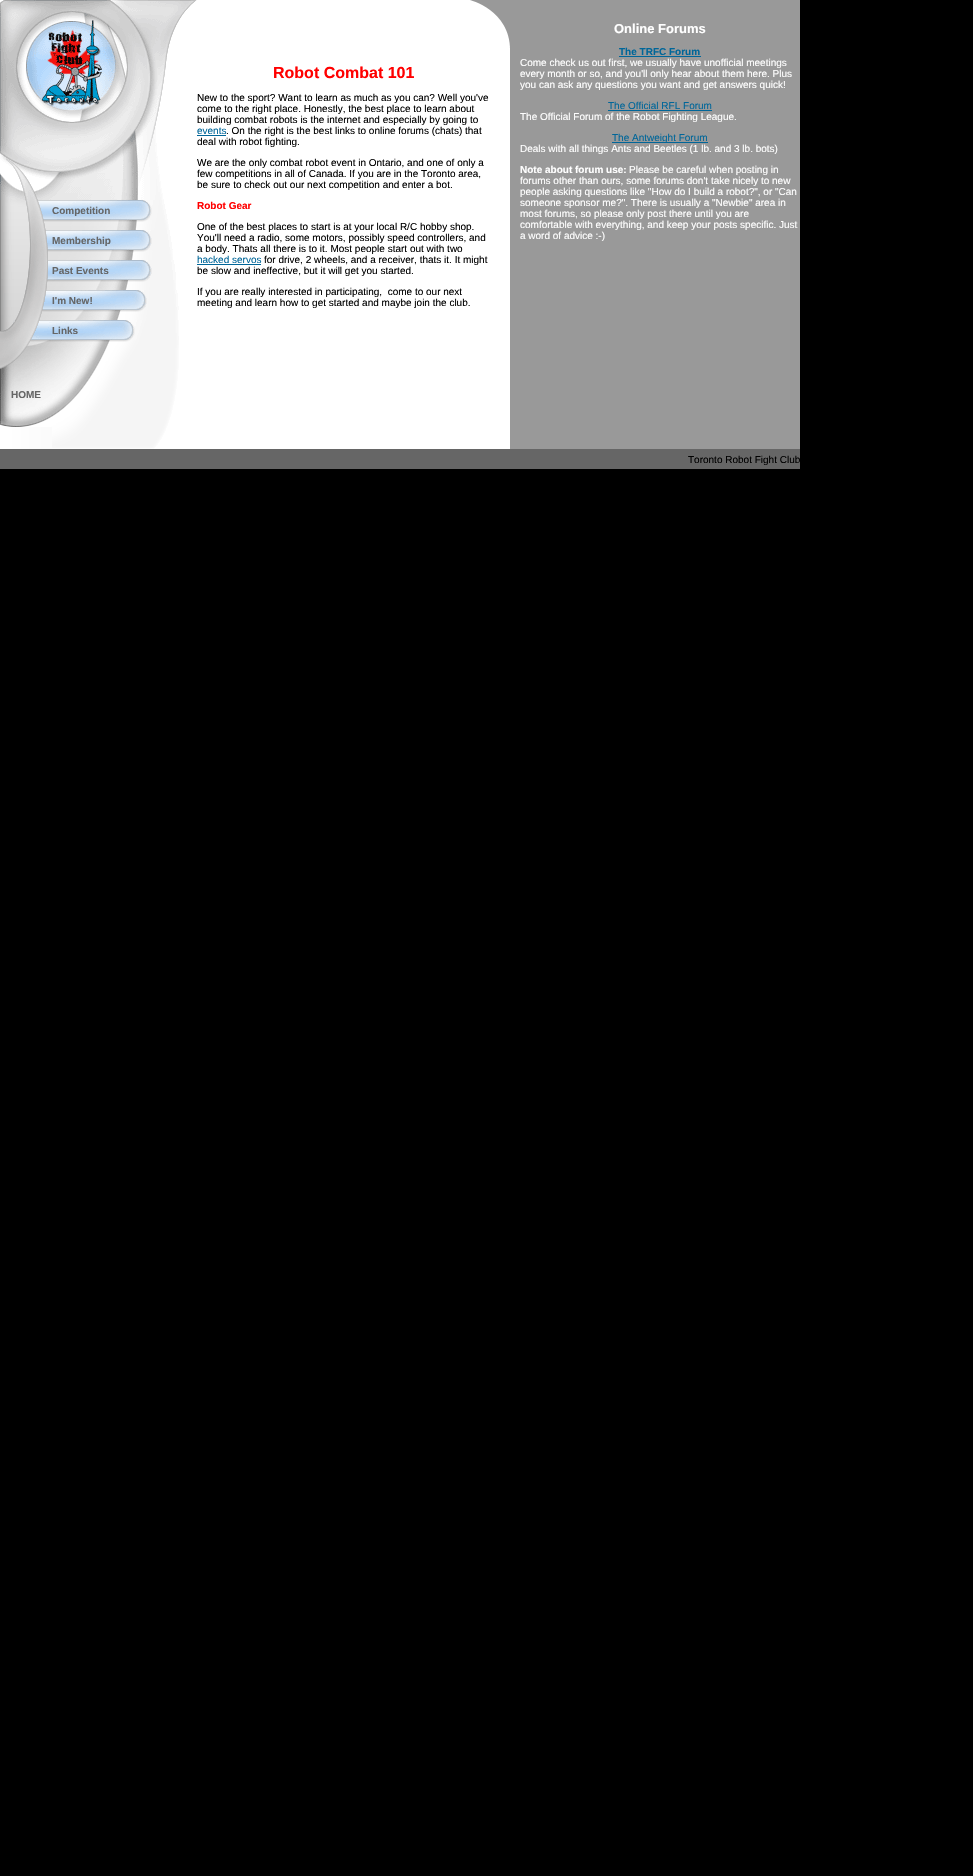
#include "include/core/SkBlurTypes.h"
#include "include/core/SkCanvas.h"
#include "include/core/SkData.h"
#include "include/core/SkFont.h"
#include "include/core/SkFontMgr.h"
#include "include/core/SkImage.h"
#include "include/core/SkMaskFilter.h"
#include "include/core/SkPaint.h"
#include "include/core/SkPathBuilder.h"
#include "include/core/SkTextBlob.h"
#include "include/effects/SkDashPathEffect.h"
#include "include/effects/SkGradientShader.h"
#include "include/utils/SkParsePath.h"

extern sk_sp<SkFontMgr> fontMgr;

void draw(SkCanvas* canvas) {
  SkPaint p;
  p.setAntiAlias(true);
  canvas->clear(SK_ColorBLACK);
  canvas->drawImageRect(SkImages::DeferredFromEncodedData(SkData::MakeFromFileName("images/1.png")), SkRect::MakeLTRB(0, 200, 197, 449), SkSamplingOptions());
  canvas->drawImageRect(SkImages::DeferredFromEncodedData(SkData::MakeFromFileName("images/2.png")), SkRect::MakeLTRB(0, 0, 197, 200), SkSamplingOptions());
  canvas->drawImageRect(SkImages::DeferredFromEncodedData(SkData::MakeFromFileName("images/3.png")), SkRect::MakeLTRB(0, 200, 52, 220), SkSamplingOptions());
  canvas->drawImageRect(SkImages::DeferredFromEncodedData(SkData::MakeFromFileName("images/4.png")), SkRect::MakeLTRB(52, 200, 168, 220), SkSamplingOptions());
  canvas->drawImageRect(SkImages::DeferredFromEncodedData(SkData::MakeFromFileName("images/5.png")), SkRect::MakeLTRB(0, 220, 52, 230), SkSamplingOptions());
  canvas->drawImageRect(SkImages::DeferredFromEncodedData(SkData::MakeFromFileName("images/6.png")), SkRect::MakeLTRB(52, 220, 169, 230), SkSamplingOptions());
  canvas->drawImageRect(SkImages::DeferredFromEncodedData(SkData::MakeFromFileName("images/7.png")), SkRect::MakeLTRB(0, 230, 52, 250), SkSamplingOptions());
  canvas->drawImageRect(SkImages::DeferredFromEncodedData(SkData::MakeFromFileName("images/8.png")), SkRect::MakeLTRB(52, 230, 173, 250), SkSamplingOptions());
  canvas->drawImageRect(SkImages::DeferredFromEncodedData(SkData::MakeFromFileName("images/9.png")), SkRect::MakeLTRB(0, 250, 52, 260), SkSamplingOptions());
  canvas->drawImageRect(SkImages::DeferredFromEncodedData(SkData::MakeFromFileName("images/10.png")), SkRect::MakeLTRB(52, 250, 173, 260), SkSamplingOptions());
  canvas->drawImageRect(SkImages::DeferredFromEncodedData(SkData::MakeFromFileName("images/11.png")), SkRect::MakeLTRB(0, 260, 52, 280), SkSamplingOptions());
  canvas->drawImageRect(SkImages::DeferredFromEncodedData(SkData::MakeFromFileName("images/12.png")), SkRect::MakeLTRB(52, 260, 176, 280), SkSamplingOptions());
  canvas->drawImageRect(SkImages::DeferredFromEncodedData(SkData::MakeFromFileName("images/13.png")), SkRect::MakeLTRB(0, 280, 52, 290), SkSamplingOptions());
  canvas->drawImageRect(SkImages::DeferredFromEncodedData(SkData::MakeFromFileName("images/14.png")), SkRect::MakeLTRB(52, 280, 176, 290), SkSamplingOptions());
  canvas->drawImageRect(SkImages::DeferredFromEncodedData(SkData::MakeFromFileName("images/15.png")), SkRect::MakeLTRB(0, 290, 52, 310), SkSamplingOptions());
  canvas->drawImageRect(SkImages::DeferredFromEncodedData(SkData::MakeFromFileName("images/16.png")), SkRect::MakeLTRB(52, 290, 179, 310), SkSamplingOptions());
  canvas->drawImageRect(SkImages::DeferredFromEncodedData(SkData::MakeFromFileName("images/17.png")), SkRect::MakeLTRB(0, 310, 52, 320), SkSamplingOptions());
  canvas->drawImageRect(SkImages::DeferredFromEncodedData(SkData::MakeFromFileName("images/18.png")), SkRect::MakeLTRB(52, 310, 178, 320), SkSamplingOptions());
  canvas->drawImageRect(SkImages::DeferredFromEncodedData(SkData::MakeFromFileName("images/19.png")), SkRect::MakeLTRB(0, 320, 52, 340), SkSamplingOptions());
  canvas->drawImageRect(SkImages::DeferredFromEncodedData(SkData::MakeFromFileName("images/20.png")), SkRect::MakeLTRB(52, 320, 179, 340), SkSamplingOptions());
  canvas->drawImageRect(SkImages::DeferredFromEncodedData(SkData::MakeFromFileName("images/21.png")), SkRect::MakeLTRB(0, 340, 52, 427), SkSamplingOptions());
  canvas->drawImageRect(SkImages::DeferredFromEncodedData(SkData::MakeFromFileName("images/22.png")), SkRect::MakeLTRB(52, 340, 179, 448), SkSamplingOptions());
  p.setColor(SK_ColorWHITE);
  canvas->drawRect(SkRect::MakeLTRB(197, 0, 490, 449), p);
  canvas->drawImageRect(SkImages::DeferredFromEncodedData(SkData::MakeFromFileName("images/23.png")), SkRect::MakeLTRB(470, 0, 490, 10), SkSamplingOptions());
  p.setColor(SkColorSetRGB(0, 102, 153));
  canvas->drawRect(SkRect::MakeLTRB(197, 135, 226, 136), p);
  canvas->drawRect(SkRect::MakeLTRB(197, 264, 261, 265), p);
  canvas->drawImageRect(SkImages::DeferredFromEncodedData(SkData::MakeFromFileName("images/24.png")), SkRect::MakeLTRB(490, 0, 520, 449), SkSamplingOptions());
  canvas->drawImageRect(SkImages::DeferredFromEncodedData(SkData::MakeFromFileName("images/25.png")), SkRect::MakeLTRB(490, 0, 510, 48), SkSamplingOptions());
  p.setColor(SkColorSetRGB(153, 153, 153));
  canvas->drawRect(SkRect::MakeLTRB(520, 0, 800, 449), p);
  p.setColor(SkColorSetRGB(0, 102, 153));
  canvas->drawRect(SkRect::MakeLTRB(619, 56, 701, 57), p);
  canvas->drawRect(SkRect::MakeLTRB(608, 110, 712, 111), p);
  canvas->drawRect(SkRect::MakeLTRB(612, 142, 708, 143), p);
  p.setColor(SkColorSetRGB(102, 102, 102));
  canvas->drawRect(SkRect::MakeLTRB(0, 449, 800, 469), p);
  SkFont font1(fontMgr->matchFamilyStyle("Liberation Sans", SkFontStyle::Bold()), 10);
  font1.setSubpixel(true);
  canvas->drawString("Competition", 52, 214, font1, p);
  canvas->drawString("Membership", 52, 244, font1, p);
  canvas->drawString("Past Events", 52, 274, font1, p);
  canvas->drawString("I'm New!", 52, 304, font1, p);
  canvas->drawString("Links", 52, 334, font1, p);
  canvas->drawString("HOME", 11, 398, font1, p);
  SkFont font2(fontMgr->matchFamilyStyle("Liberation Sans", SkFontStyle::Bold()), 16);
  font2.setSubpixel(true);
  p.setColor(SkColorSetRGB(255, 0, 0));
  canvas->drawString("Robot Combat 101", 273, 78, font2, p);
  SkFont font3(fontMgr->matchFamilyStyle("Liberation Sans", SkFontStyle::Normal()), 10);
  font3.setSubpixel(true);
  p.setColor(SK_ColorBLACK);
  canvas->drawString("New to the sport? Want to learn as much as you can? Well you've", 197, 101, font3, p);
  canvas->drawString("come to the right place. Honestly, the best place to learn about", 197, 112, font3, p);
  canvas->drawString("building combat robots is the internet and especially by going to", 197, 123, font3, p);
  p.setColor(SkColorSetRGB(0, 102, 153));
  canvas->drawString("events", 197, 134, font3, p);
  p.setColor(SK_ColorBLACK);
  canvas->drawString(". On the right is the best links to online forums (chats) that", 226, 134, font3, p);
  canvas->drawString("deal with robot fighting.", 197, 145, font3, p);
  canvas->drawString("We are the only combat robot event in Ontario, and one of only a", 197, 166, font3, p);
  canvas->drawString("few competitions in all of Canada. If you are in the Toronto area,", 197, 177, font3, p);
  canvas->drawString("be sure to check out our next competition and enter a bot.", 197, 188, font3, p);
  p.setColor(SkColorSetRGB(255, 0, 0));
  canvas->drawString("Robot Gear", 197, 209, font1, p);
  p.setColor(SK_ColorBLACK);
  canvas->drawString("One of the best places to start is at your local R/C hobby shop.", 197, 230, font3, p);
  canvas->drawString("You'll need a radio, some motors, possibly speed controllers, and", 197, 241, font3, p);
  canvas->drawString("a body. Thats all there is to it. Most people start out with two", 197, 252, font3, p);
  p.setColor(SkColorSetRGB(0, 102, 153));
  canvas->drawString("hacked servos", 197, 263, font3, p);
  p.setColor(SK_ColorBLACK);
  canvas->drawString("for drive, 2 wheels, and a receiver, thats it. It might", 264, 263, font3, p);
  canvas->drawString("be slow and ineffective, but it will get you started.", 197, 274, font3, p);
  canvas->drawString("If you are really interested in participating,  come to our next", 197, 295, font3, p);
  canvas->drawString("meeting and learn how to get started and maybe join the club.", 197, 306, font3, p);
  SkFont font4(fontMgr->matchFamilyStyle("Liberation Sans", SkFontStyle::Bold()), 13);
  font4.setSubpixel(true);
  p.setColor(SK_ColorWHITE);
  canvas->drawString("Online Forums", 614, 33, font4, p);
  p.setColor(SkColorSetRGB(0, 102, 153));
  canvas->drawString("The TRFC Forum", 619, 55, font1, p);
  p.setColor(SK_ColorWHITE);
  canvas->drawString("Come check us out first, we usually have unofficial meetings", 520, 66, font3, p);
  canvas->drawString("every month or so, and you'll only hear about them here. Plus", 520, 77, font3, p);
  canvas->drawString("you can ask any questions you want and get answers quick!", 520, 88, font3, p);
  p.setColor(SkColorSetRGB(0, 102, 153));
  canvas->drawString("The Official RFL Forum", 608, 109, font3, p);
  p.setColor(SK_ColorWHITE);
  canvas->drawString("The Official Forum of the Robot Fighting League.", 520, 120, font3, p);
  p.setColor(SkColorSetRGB(0, 102, 153));
  canvas->drawString("The Antweight Forum", 612, 141, font3, p);
  p.setColor(SK_ColorWHITE);
  canvas->drawString("Deals with all things Ants and Beetles (1 lb. and 3 lb. bots)", 520, 152, font3, p);
  canvas->drawString("Note about forum use:", 520, 173, font1, p);
  canvas->drawString("Please be careful when posting in", 629, 173, font3, p);
  canvas->drawString("forums other than ours, some forums don't take nicely to new", 520, 184, font3, p);
  canvas->drawString("people asking questions like \"How do I build a robot?\", or \"Can", 520, 195, font3, p);
  canvas->drawString("someone sponsor me?\". There is usually a \"Newbie\" area in", 520, 206, font3, p);
  canvas->drawString("most forums, so please only post there until you are", 520, 217, font3, p);
  canvas->drawString("comfortable with everything, and keep your posts specific. Just", 520, 228, font3, p);
  canvas->drawString("a word of advice :-)", 520, 239, font3, p);
  p.setColor(SK_ColorBLACK);
  canvas->drawString("Toronto Robot Fight Club", 688, 463, font3, p);
}
